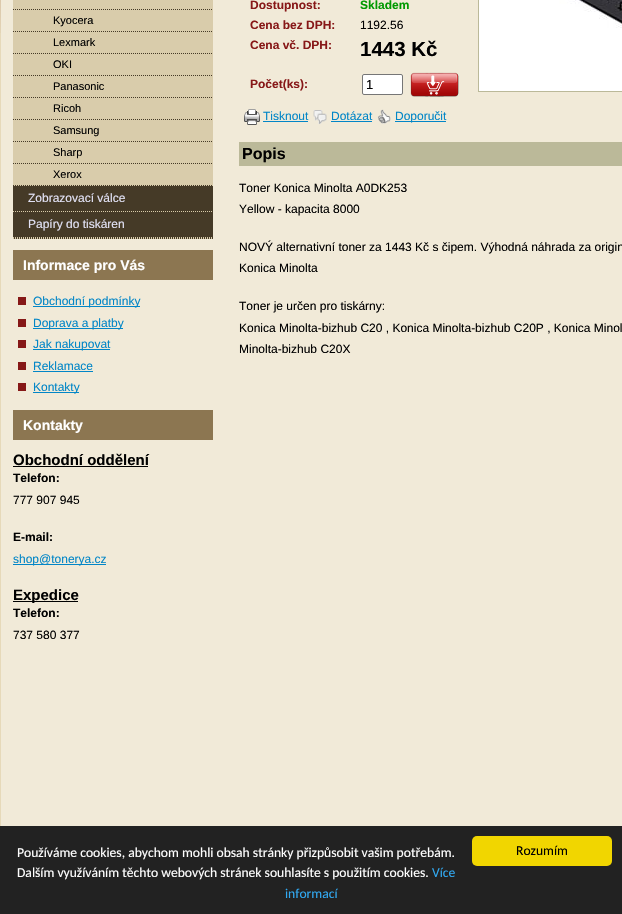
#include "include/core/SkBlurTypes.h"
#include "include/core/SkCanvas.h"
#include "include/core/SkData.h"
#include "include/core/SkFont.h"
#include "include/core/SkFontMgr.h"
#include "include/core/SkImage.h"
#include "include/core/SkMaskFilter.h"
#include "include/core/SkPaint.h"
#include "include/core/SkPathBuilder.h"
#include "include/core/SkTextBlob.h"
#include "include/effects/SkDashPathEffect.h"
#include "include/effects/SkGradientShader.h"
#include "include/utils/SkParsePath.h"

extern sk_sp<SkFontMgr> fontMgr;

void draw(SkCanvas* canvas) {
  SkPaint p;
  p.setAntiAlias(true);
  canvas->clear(SkColorSetRGB(230, 217, 185));
  canvas->drawImageRect(SkImages::DeferredFromEncodedData(SkData::MakeFromFileName("images/1.png")), SkRect::MakeLTRB(0, 0, 1, 33), SkSamplingOptions());
  p.setColor(SkColorSetRGB(241, 234, 216));
  canvas->drawRect(SkRect::MakeLTRB(1, 0, 622, 826), p);
  p.setColor(SkColorSetRGB(217, 204, 171));
  canvas->drawRect(SkRect::MakeLTRB(13, 0, 213, 186), p);
  p.setStyle(SkPaint::kStroke_Style);
  p.setStrokeWidth(1);
  p.setColor(SkColorSetRGB(69, 58, 39));
  p.setPathEffect(SkDashPathEffect::Make({{1, 1}}, 0));
  canvas->drawPath(SkPathBuilder().moveTo(13, 9.5f).lineTo(213, 9.5f).detach(), p);
  p.setPathEffect(nullptr);
  p.setPathEffect(SkDashPathEffect::Make({{1, 1}}, 0));
  canvas->drawPath(SkPathBuilder().moveTo(13, 31.5f).lineTo(213, 31.5f).detach(), p);
  p.setPathEffect(nullptr);
  p.setPathEffect(SkDashPathEffect::Make({{1, 1}}, 0));
  canvas->drawPath(SkPathBuilder().moveTo(13, 53.5f).lineTo(213, 53.5f).detach(), p);
  p.setPathEffect(nullptr);
  p.setPathEffect(SkDashPathEffect::Make({{1, 1}}, 0));
  canvas->drawPath(SkPathBuilder().moveTo(13, 75.5f).lineTo(213, 75.5f).detach(), p);
  p.setPathEffect(nullptr);
  p.setPathEffect(SkDashPathEffect::Make({{1, 1}}, 0));
  canvas->drawPath(SkPathBuilder().moveTo(13, 97.5f).lineTo(213, 97.5f).detach(), p);
  p.setPathEffect(nullptr);
  p.setPathEffect(SkDashPathEffect::Make({{1, 1}}, 0));
  canvas->drawPath(SkPathBuilder().moveTo(13, 119.5f).lineTo(213, 119.5f).detach(), p);
  p.setPathEffect(nullptr);
  p.setPathEffect(SkDashPathEffect::Make({{1, 1}}, 0));
  canvas->drawPath(SkPathBuilder().moveTo(13, 141.5f).lineTo(213, 141.5f).detach(), p);
  p.setPathEffect(nullptr);
  p.setPathEffect(SkDashPathEffect::Make({{1, 1}}, 0));
  canvas->drawPath(SkPathBuilder().moveTo(13, 163.5f).lineTo(213, 163.5f).detach(), p);
  p.setPathEffect(nullptr);
  p.setPathEffect(SkDashPathEffect::Make({{1, 1}}, 0));
  canvas->drawPath(SkPathBuilder().moveTo(13, 185.5f).lineTo(213, 185.5f).detach(), p);
  p.setPathEffect(nullptr);
  p.setStyle(SkPaint::kFill_Style);
  canvas->drawRect(SkRect::MakeLTRB(13, 186, 213, 239), p);
  p.setStyle(SkPaint::kStroke_Style);
  p.setColor(SkColorSetRGB(217, 204, 171));
  p.setPathEffect(SkDashPathEffect::Make({{1, 1}}, 0));
  canvas->drawPath(SkPathBuilder().moveTo(13, 211.5f).lineTo(213, 211.5f).detach(), p);
  p.setPathEffect(nullptr);
  p.setPathEffect(SkDashPathEffect::Make({{1, 1}}, 0));
  canvas->drawPath(SkPathBuilder().moveTo(13, 237.5f).lineTo(213, 237.5f).detach(), p);
  p.setPathEffect(nullptr);
  p.setPathEffect(SkDashPathEffect::Make({{1, 1}}, 0));
  canvas->drawPath(SkPathBuilder().moveTo(13, 238.5f).lineTo(213, 238.5f).detach(), p);
  p.setPathEffect(nullptr);
  p.setStyle(SkPaint::kFill_Style);
  p.setColor(SkColorSetRGB(140, 118, 81));
  canvas->drawRect(SkRect::MakeLTRB(13, 250, 213, 280), p);
  p.setColor(SkColorSetRGB(134, 24, 23));
  canvas->drawRect(SkRect::MakeLTRB(18, 297, 26, 305), p);
  p.setColor(SkColorSetRGB(2, 134, 199));
  canvas->drawRect(SkRect::MakeLTRB(33, 306, 140, 307), p);
  p.setColor(SkColorSetRGB(134, 24, 23));
  canvas->drawRect(SkRect::MakeLTRB(18, 319, 26, 327), p);
  p.setColor(SkColorSetRGB(2, 134, 199));
  canvas->drawRect(SkRect::MakeLTRB(33, 328, 123, 329), p);
  p.setColor(SkColorSetRGB(134, 24, 23));
  canvas->drawRect(SkRect::MakeLTRB(18, 340, 26, 348), p);
  p.setColor(SkColorSetRGB(2, 134, 199));
  canvas->drawRect(SkRect::MakeLTRB(33, 349, 110, 350), p);
  p.setColor(SkColorSetRGB(134, 24, 23));
  canvas->drawRect(SkRect::MakeLTRB(18, 362, 26, 370), p);
  p.setColor(SkColorSetRGB(2, 134, 199));
  canvas->drawRect(SkRect::MakeLTRB(33, 371, 93, 372), p);
  p.setColor(SkColorSetRGB(134, 24, 23));
  canvas->drawRect(SkRect::MakeLTRB(18, 383, 26, 391), p);
  p.setColor(SkColorSetRGB(2, 134, 199));
  canvas->drawRect(SkRect::MakeLTRB(33, 392, 79, 393), p);
  p.setColor(SkColorSetRGB(140, 118, 81));
  canvas->drawRect(SkRect::MakeLTRB(13, 410, 213, 440), p);
  p.setColor(SK_ColorBLACK);
  canvas->drawRect(SkRect::MakeLTRB(13, 466, 148, 467), p);
  p.setColor(SkColorSetRGB(2, 134, 199));
  canvas->drawRect(SkRect::MakeLTRB(13, 564, 106, 565), p);
  p.setColor(SK_ColorBLACK);
  canvas->drawRect(SkRect::MakeLTRB(13, 601, 78, 602), p);
  p.setColor(SK_ColorWHITE);
  canvas->drawRoundRect(SkRect::MakeLTRB(362.5f, 74.5f, 402.5f, 94.5f), 1.5f, 1.5f, p);
  p.setStyle(SkPaint::kStroke_Style);
  p.setColor(SkColorSetRGB(118, 118, 118));
  canvas->drawRoundRect(SkRect::MakeLTRB(362.5f, 74.5f, 402.5f, 94.5f), 1.5f, 1.5f, p);
  canvas->drawImageRect(SkImages::DeferredFromEncodedData(SkData::MakeFromFileName("images/2.png")), SkRect::MakeLTRB(410, 72, 459, 97), SkSamplingOptions());
  p.setColor(SkColorSetRGB(187, 185, 153));
  canvas->drawRect(SkRect::MakeLTRB(478.5f, -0.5f, 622.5f, 91.5f), p);
  canvas->drawImageRect(SkImages::DeferredFromEncodedData(SkData::MakeFromFileName("images/3.png")), SkRect::MakeLTRB(479, 0, 622, 91), SkSamplingOptions());
  canvas->drawImageRect(SkImages::DeferredFromEncodedData(SkData::MakeFromFileName("images/4.png")), SkRect::MakeLTRB(244, 109, 260, 125), SkSamplingOptions());
  p.setStyle(SkPaint::kFill_Style);
  p.setColor(SkColorSetRGB(2, 134, 199));
  canvas->drawRect(SkRect::MakeLTRB(263, 121, 308, 122), p);
  canvas->drawImageRect(SkImages::DeferredFromEncodedData(SkData::MakeFromFileName("images/5.png")), SkRect::MakeLTRB(313, 110, 327, 124), SkSamplingOptions());
  canvas->drawRect(SkRect::MakeLTRB(331, 121, 372, 122), p);
  canvas->drawImageRect(SkImages::DeferredFromEncodedData(SkData::MakeFromFileName("images/6.png")), SkRect::MakeLTRB(377, 109, 391, 124), SkSamplingOptions());
  canvas->drawRect(SkRect::MakeLTRB(395, 121, 446, 122), p);
  p.setColor(SkColorSetRGB(187, 185, 153));
  canvas->drawRect(SkRect::MakeLTRB(239, 142, 622, 166), p);
  p.setColor(SkColorSetRGB(34, 34, 34));
  canvas->drawRect(SkRect::MakeLTRB(0, 826, 622, 914), p);
  p.setColor(SkColorSetRGB(241, 214, 0));
  canvas->drawRoundRect(SkRect::MakeLTRB(472, 836, 612, 866), 5, 5, p);
  SkFont font1(fontMgr->matchFamilyStyle("Liberation Sans", SkFontStyle::Normal()), 11);
  font1.setSubpixel(true);
  p.setColor(SK_ColorBLACK);
  canvas->drawString("Kyocera", 53, 24, font1, p);
  canvas->drawString("Lexmark", 53, 46, font1, p);
  canvas->drawString("OKI", 53, 68, font1, p);
  canvas->drawString("Panasonic", 53, 90, font1, p);
  canvas->drawString("Ricoh", 53, 112, font1, p);
  canvas->drawString("Samsung", 53, 134, font1, p);
  canvas->drawString("Sharp", 53, 156, font1, p);
  canvas->drawString("Xerox", 53, 178, font1, p);
  SkFont font2(fontMgr->matchFamilyStyle("Liberation Sans", SkFontStyle::Normal()), 12);
  font2.setSubpixel(true);
  p.setColor(SkColorSetRGB(226, 226, 245));
  canvas->drawString("Zobrazovací válce", 28, 202, font2, p);
  canvas->drawString("Papíry do tiskáren", 28, 228, font2, p);
  SkFont font3(fontMgr->matchFamilyStyle("Liberation Sans", SkFontStyle::Bold()), 14);
  font3.setSubpixel(true);
  p.setColor(SK_ColorWHITE);
  canvas->drawString("Informace pro Vás", 23, 270, font3, p);
  p.setColor(SkColorSetRGB(2, 134, 199));
  canvas->drawString("Obchodní podmínky", 33, 305, font2, p);
  canvas->drawString("Doprava a platby", 33, 327, font2, p);
  canvas->drawString("Jak nakupovat", 33, 348, font2, p);
  canvas->drawString("Reklamace", 33, 370, font2, p);
  canvas->drawString("Kontakty", 33, 391, font2, p);
  p.setColor(SK_ColorWHITE);
  canvas->drawString("Kontakty", 23, 430, font3, p);
  SkFont font4(fontMgr->matchFamilyStyle("Liberation Sans", SkFontStyle::Bold()), 15);
  font4.setSubpixel(true);
  p.setColor(SK_ColorBLACK);
  canvas->drawString("Obchodní oddělení", 13, 465, font4, p);
  SkFont font5(fontMgr->matchFamilyStyle("Liberation Sans", SkFontStyle::Bold()), 12);
  font5.setSubpixel(true);
  canvas->drawString("Telefon:", 13, 482, font5, p);
  canvas->drawString("777 907 945", 13, 504, font2, p);
  canvas->drawString("E-mail:", 13, 541, font5, p);
  p.setColor(SkColorSetRGB(2, 134, 199));
  canvas->drawString("shop@tonerya.cz", 13, 563, font2, p);
  p.setColor(SK_ColorBLACK);
  canvas->drawString("Expedice", 13, 600, font4, p);
  canvas->drawString("Telefon:", 13, 617, font5, p);
  canvas->drawString("737 580 377", 13, 639, font2, p);
  p.setColor(SkColorSetRGB(135, 24, 24));
  canvas->drawString("Dostupnost:", 250, 9, font5, p);
  p.setColor(SkColorSetRGB(0, 153, 0));
  canvas->drawString("Skladem", 360, 9, font5, p);
  p.setColor(SkColorSetRGB(135, 24, 24));
  canvas->drawString("Cena bez DPH:", 250, 29, font5, p);
  p.setColor(SK_ColorBLACK);
  canvas->drawString("1192.56", 360, 29, font2, p);
  p.setColor(SkColorSetRGB(135, 24, 24));
  canvas->drawString("Cena vč. DPH:", 250, 49, font5, p);
  SkFont font6(fontMgr->matchFamilyStyle("Liberation Sans", SkFontStyle::Bold()), 20.5f);
  font6.setSubpixel(true);
  p.setColor(SK_ColorBLACK);
  canvas->drawString("1443 Kč", 360, 56, font6, p);
  p.setColor(SkColorSetRGB(135, 24, 24));
  canvas->drawString("Počet(ks):", 250, 88, font5, p);
  SkFont font7(fontMgr->matchFamilyStyle("Liberation Sans", SkFontStyle::Normal()), 13);
  font7.setSubpixel(true);
  p.setColor(SK_ColorBLACK);
  canvas->drawString("1", 366, 89, font7, p);
  p.setColor(SkColorSetRGB(2, 134, 199));
  canvas->drawString("Tisknout", 263, 120, font2, p);
  canvas->drawString("Dotázat", 331, 120, font2, p);
  canvas->drawString("Doporučit", 395, 120, font2, p);
  SkFont font8(fontMgr->matchFamilyStyle("Liberation Sans", SkFontStyle::Bold()), 16);
  font8.setSubpixel(true);
  p.setColor(SK_ColorBLACK);
  canvas->drawString("Popis", 242, 159, font8, p);
  canvas->drawString("Toner Konica Minolta A0DK253", 239, 192, font2, p);
  canvas->drawString("Yellow - kapacita 8000", 239, 213, font2, p);
  canvas->drawString("NOVÝ alternativní toner za 1443 Kč s čipem. Výhodná náhrada za origin", 239, 251, font2, p);
  canvas->drawString("Konica Minolta", 239, 272, font2, p);
  canvas->drawString("Toner je určen pro tiskárny:", 239, 310, font2, p);
  canvas->drawString("Konica Minolta-bizhub C20 , Konica Minolta-bizhub C20P , Konica Minol", 239, 332, font2, p);
  canvas->drawString("Minolta-bizhub C20X", 239, 353, font2, p);
  SkFont font9(fontMgr->matchFamilyStyle("Carlito", SkFontStyle::Normal()), 13.6f);
  font9.setSubpixel(true);
  p.setColor(SK_ColorWHITE);
  canvas->drawString("Používáme cookies, abychom mohli obsah stránky přizpůsobit vašim potřebám.", 17, 857, font9, p);
  canvas->drawString("Dalším využíváním těchto webových stránek souhlasíte s použitím cookies.", 17, 877, font9, p);
  p.setColor(SkColorSetRGB(49, 168, 240));
  canvas->drawString("Více", 432, 877, font9, p);
  canvas->drawString("informací", 285, 898, font9, p);
  p.setColor(SK_ColorBLACK);
  canvas->drawString("Rozumím", 516, 855, font9, p);
}
